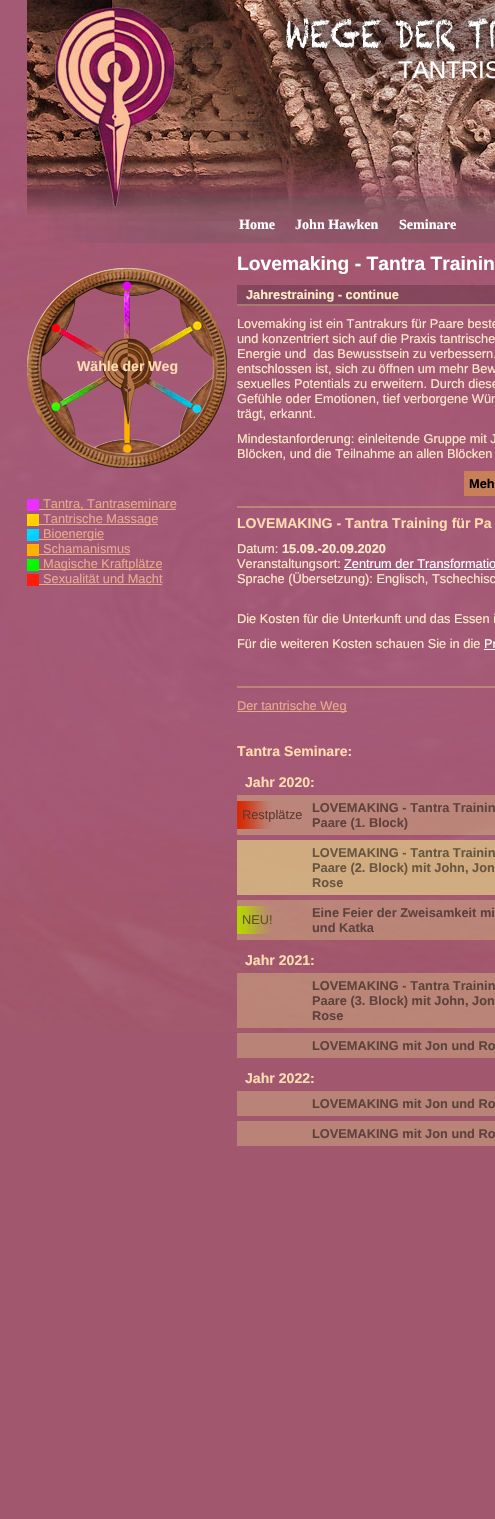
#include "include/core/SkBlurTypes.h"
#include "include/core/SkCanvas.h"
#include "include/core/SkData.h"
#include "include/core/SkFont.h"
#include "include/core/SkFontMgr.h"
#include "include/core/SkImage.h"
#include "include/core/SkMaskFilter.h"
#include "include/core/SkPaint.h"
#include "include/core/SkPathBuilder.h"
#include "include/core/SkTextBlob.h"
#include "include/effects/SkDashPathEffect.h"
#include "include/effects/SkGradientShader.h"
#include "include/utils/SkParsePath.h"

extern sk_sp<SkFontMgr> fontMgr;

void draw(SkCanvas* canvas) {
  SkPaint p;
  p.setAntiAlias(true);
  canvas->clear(SkColorSetRGB(161, 87, 110));
  canvas->drawImageRect(SkImages::DeferredFromEncodedData(SkData::MakeFromFileName("images/1.png")), SkRect::MakeLTRB(0, 0, 495, 1032), SkSamplingOptions());
  canvas->drawImageRect(SkImages::DeferredFromEncodedData(SkData::MakeFromFileName("images/3.png")), SkRect::MakeLTRB(27, 0, 495, 221), SkSamplingOptions());
  canvas->drawImageRect(SkImages::DeferredFromEncodedData(SkData::MakeFromFileName("images/2.png")), SkRect::MakeLTRB(281, 13, 495, 55), SkSamplingOptions());
  canvas->drawImageRect(SkImages::DeferredFromEncodedData(SkData::MakeFromFileName("images/4.png")), SkRect::MakeLTRB(48, 196, 495, 243), SkSamplingOptions());
  canvas->drawImageRect(SkImages::DeferredFromEncodedData(SkData::MakeFromFileName("images/5.png")), SkRect::MakeLTRB(27, 268, 227, 468), SkSamplingOptions());
  canvas->drawImageRect(SkImages::DeferredFromEncodedData(SkData::MakeFromFileName("images/6.png")), SkRect::MakeLTRB(102, 338, 154, 390), SkSamplingOptions());
  canvas->drawImageRect(SkImages::DeferredFromEncodedData(SkData::MakeFromFileName("images/7.png")), SkRect::MakeLTRB(120, 390, 136, 425), SkSamplingOptions());
  canvas->drawImageRect(SkImages::DeferredFromEncodedData(SkData::MakeFromFileName("images/8.png")), SkRect::MakeLTRB(27, 499, 39, 511), SkSamplingOptions());
  p.setColor(SkColorSetRGB(230, 170, 140));
  canvas->drawRect(SkRect::MakeLTRB(39, 509, 176, 510), p);
  canvas->drawImageRect(SkImages::DeferredFromEncodedData(SkData::MakeFromFileName("images/9.png")), SkRect::MakeLTRB(27, 514, 39, 526), SkSamplingOptions());
  canvas->drawRect(SkRect::MakeLTRB(39, 524, 158, 525), p);
  canvas->drawImageRect(SkImages::DeferredFromEncodedData(SkData::MakeFromFileName("images/10.png")), SkRect::MakeLTRB(27, 529, 39, 541), SkSamplingOptions());
  canvas->drawRect(SkRect::MakeLTRB(39, 539, 104, 540), p);
  p.setColor(SkColorSetRGB(255, 176, 0));
  canvas->drawRect(SkRect::MakeLTRB(27, 544, 39, 556), p);
  p.setColor(SkColorSetRGB(230, 170, 140));
  canvas->drawRect(SkRect::MakeLTRB(39, 554, 130, 555), p);
  canvas->drawImageRect(SkImages::DeferredFromEncodedData(SkData::MakeFromFileName("images/11.png")), SkRect::MakeLTRB(27, 559, 39, 571), SkSamplingOptions());
  canvas->drawRect(SkRect::MakeLTRB(39, 569, 162, 570), p);
  canvas->drawImageRect(SkImages::DeferredFromEncodedData(SkData::MakeFromFileName("images/12.png")), SkRect::MakeLTRB(27, 574, 39, 586), SkSamplingOptions());
  canvas->drawRect(SkRect::MakeLTRB(39, 584, 162, 585), p);
  p.setColor(SkColorSetARGB(51, 0, 0, 0));
  canvas->drawRect(SkRect::MakeLTRB(237, 285, 244, 306), p);
  p.setColor(SkColorSetRGB(169, 123, 110));
  canvas->drawRect(SkRect::MakeLTRB(237, 304, 244, 306), p);
  p.setColor(SkColorSetARGB(51, 0, 0, 0));
  canvas->drawRect(SkRect::MakeLTRB(244, 285, 495, 306), p);
  p.setColor(SkColorSetARGB(115, 215, 186, 130));
  canvas->drawRect(SkRect::MakeLTRB(244, 304, 495, 306), p);
  p.setColor(SkColorSetARGB(102, 254, 185, 45));
  canvas->drawRect(SkRect::MakeLTRB(464, 471, 495, 496), p);
  p.setColor(SkColorSetARGB(115, 215, 186, 130));
  canvas->drawRect(SkRect::MakeLTRB(237, 506, 495, 508), p);
  p.setColor(SK_ColorWHITE);
  canvas->drawRect(SkRect::MakeLTRB(344, 569, 495, 570), p);
  canvas->drawRect(SkRect::MakeLTRB(484, 649, 495, 650), p);
  p.setColor(SkColorSetARGB(115, 215, 186, 130));
  canvas->drawRect(SkRect::MakeLTRB(237, 686, 495, 688), p);
  p.setColor(SkColorSetRGB(230, 170, 140));
  canvas->drawRect(SkRect::MakeLTRB(237, 711, 347, 712), p);
  p.setColor(SkColorSetARGB(115, 215, 186, 130));
  canvas->drawRect(SkRect::MakeLTRB(237, 795, 307, 835), p);
  canvas->drawImageRect(SkImages::DeferredFromEncodedData(SkData::MakeFromFileName("images/13.png")), SkRect::MakeLTRB(237, 801, 272, 829), SkSamplingOptions());
  canvas->drawRect(SkRect::MakeLTRB(307, 795, 495, 835), p);
  p.setColor(SkColorSetARGB(217, 215, 186, 130));
  canvas->drawRect(SkRect::MakeLTRB(237, 840, 307, 895), p);
  canvas->drawRect(SkRect::MakeLTRB(307, 840, 495, 895), p);
  p.setColor(SkColorSetARGB(115, 215, 186, 130));
  canvas->drawRect(SkRect::MakeLTRB(237, 900, 307, 940), p);
  canvas->drawImageRect(SkImages::DeferredFromEncodedData(SkData::MakeFromFileName("images/14.png")), SkRect::MakeLTRB(237, 906, 272, 934), SkSamplingOptions());
  canvas->drawRect(SkRect::MakeLTRB(307, 900, 495, 940), p);
  canvas->drawRect(SkRect::MakeLTRB(237, 973, 307, 1028), p);
  canvas->drawRect(SkRect::MakeLTRB(307, 973, 495, 1028), p);
  p.setColor(SkColorSetRGB(185, 132, 119));
  canvas->drawRect(SkRect::MakeLTRB(237, 1033, 495, 1058), p);
  canvas->drawRect(SkRect::MakeLTRB(237, 1091, 495, 1116), p);
  canvas->drawRect(SkRect::MakeLTRB(237, 1121, 495, 1146), p);
  SkFont font1(fontMgr->matchFamilyStyle("Liberation Sans", SkFontStyle::Normal()), 24);
  font1.setSubpixel(true);
  p.setColor(SK_ColorWHITE);
  canvas->drawString("TANTRIS", 398, 78, font1, p);
  SkFont font2(fontMgr->matchFamilyStyle("Liberation Serif", SkFontStyle::Bold()), 14.1f);
  font2.setSubpixel(true);
  canvas->drawString("Home", 239, 229, font2, p);
  canvas->drawString("John Hawken", 295, 229, font2, p);
  canvas->drawString("Seminare", 399, 229, font2, p);
  SkFont font3(fontMgr->matchFamilyStyle("Liberation Sans", SkFontStyle::Bold()), 14.1f);
  font3.setSubpixel(true);
  p.setColor(SkColorSetRGB(255, 221, 178));
  canvas->drawString("Wähle der Weg", 77, 371, font3, p);
  SkFont font4(fontMgr->matchFamilyStyle("Liberation Sans", SkFontStyle::Normal()), 12.8f);
  font4.setSubpixel(true);
  p.setColor(SkColorSetRGB(230, 170, 140));
  canvas->drawString("Tantra, Tantraseminare", 43, 508, font4, p);
  canvas->drawString("Tantrische Massage", 43, 523, font4, p);
  canvas->drawString("Bioenergie", 43, 538, font4, p);
  canvas->drawString("Schamanismus", 43, 553, font4, p);
  canvas->drawString("Magische Kraftplätze", 43, 568, font4, p);
  canvas->drawString("Sexualität und Macht", 43, 583, font4, p);
  SkFont font5(fontMgr->matchFamilyStyle("Liberation Sans", SkFontStyle::Bold()), 19.25f);
  font5.setSubpixel(true);
  p.setColor(SK_ColorWHITE);
  canvas->drawString("Lovemaking - Tantra Trainin", 237, 270, font5, p);
  SkFont font6(fontMgr->matchFamilyStyle("Liberation Sans", SkFontStyle::Bold()), 12.8f);
  font6.setSubpixel(true);
  p.setColor(SkColorSetRGB(255, 236, 200));
  canvas->drawString("Jahrestraining - continue", 246, 299, font6, p);
  canvas->drawString("Lovemaking ist ein Tantrakurs für Paare beste", 237, 328, font4, p);
  canvas->drawString("und konzentriert sich auf die Praxis tantrische", 237, 343, font4, p);
  canvas->drawString("Energie und  das Bewusstsein zu verbessern.", 237, 358, font4, p);
  canvas->drawString("entschlossen ist, sich zu öffnen um mehr Bew", 237, 373, font4, p);
  canvas->drawString("sexuelles Potentials zu erweitern. Durch diese", 237, 388, font4, p);
  canvas->drawString("Gefühle oder Emotionen, tief verborgene Wün", 237, 403, font4, p);
  canvas->drawString("trägt, erkannt.", 237, 418, font4, p);
  canvas->drawString("Mindestanforderung: einleitende Gruppe mit J", 237, 443, font4, p);
  canvas->drawString("Blöcken, und die Teilnahme an allen Blöcken", 237, 458, font4, p);
  p.setColor(SK_ColorBLACK);
  canvas->drawString("Meh", 469, 488, font6, p);
  p.setColor(SkColorSetRGB(255, 221, 178));
  canvas->drawString("LOVEMAKING - Tantra Training für Pa", 237, 528, font3, p);
  p.setColor(SkColorSetRGB(255, 236, 200));
  canvas->drawString("Datum:", 237, 553, font4, p);
  canvas->drawString("15.09.-20.09.2020", 282, 553, font6, p);
  canvas->drawString("Veranstaltungsort:", 237, 568, font4, p);
  p.setColor(SK_ColorWHITE);
  canvas->drawString("Zentrum der Transformatio", 344, 568, font4, p);
  p.setColor(SkColorSetRGB(255, 236, 200));
  canvas->drawString("Sprache (Übersetzung): Englisch, Tschechisc", 237, 583, font4, p);
  canvas->drawString("Die Kosten für die Unterkunft und das Essen i", 237, 623, font4, p);
  canvas->drawString("Für die weiteren Kosten schauen Sie in die", 237, 648, font4, p);
  p.setColor(SK_ColorWHITE);
  canvas->drawString("Pr", 484, 648, font4, p);
  p.setColor(SkColorSetRGB(230, 170, 140));
  canvas->drawString("Der tantrische Weg", 237, 710, font4, p);
  p.setColor(SkColorSetRGB(255, 221, 178));
  canvas->drawString("Tantra Seminare:", 237, 756, font3, p);
  canvas->drawString("Jahr 2020:", 245, 787, font3, p);
  p.setColor(SkColorSetRGB(96, 56, 48));
  canvas->drawString("Restplätze", 242, 819, font4, p);
  p.setColor(SkColorSetRGB(94, 66, 61));
  canvas->drawString("LOVEMAKING - Tantra Trainin", 312, 812, font6, p);
  canvas->drawString("Paare (1. Block)", 312, 827, font6, p);
  p.setColor(SkColorSetRGB(104, 86, 64));
  canvas->drawString("LOVEMAKING - Tantra Trainin", 312, 857, font6, p);
  canvas->drawString("Paare (2. Block) mit John, Jon", 312, 872, font6, p);
  canvas->drawString("Rose", 312, 887, font6, p);
  p.setColor(SkColorSetRGB(91, 83, 33));
  canvas->drawString("NEU!", 242, 924, font4, p);
  p.setColor(SkColorSetRGB(94, 66, 61));
  canvas->drawString("Eine Feier der Zweisamkeit mi", 312, 917, font6, p);
  canvas->drawString("und Katka", 312, 932, font6, p);
  p.setColor(SkColorSetRGB(255, 221, 178));
  canvas->drawString("Jahr 2021:", 245, 965, font3, p);
  p.setColor(SkColorSetRGB(94, 66, 61));
  canvas->drawString("LOVEMAKING - Tantra Trainin", 312, 990, font6, p);
  canvas->drawString("Paare (3. Block) mit John, Jon", 312, 1005, font6, p);
  canvas->drawString("Rose", 312, 1020, font6, p);
  canvas->drawString("LOVEMAKING mit Jon und Ro", 312, 1050, font6, p);
  p.setColor(SkColorSetRGB(255, 221, 178));
  canvas->drawString("Jahr 2022:", 245, 1083, font3, p);
  p.setColor(SkColorSetRGB(94, 66, 61));
  canvas->drawString("LOVEMAKING mit Jon und Ro", 312, 1108, font6, p);
  canvas->drawString("LOVEMAKING mit Jon und Ro", 312, 1138, font6, p);
}
